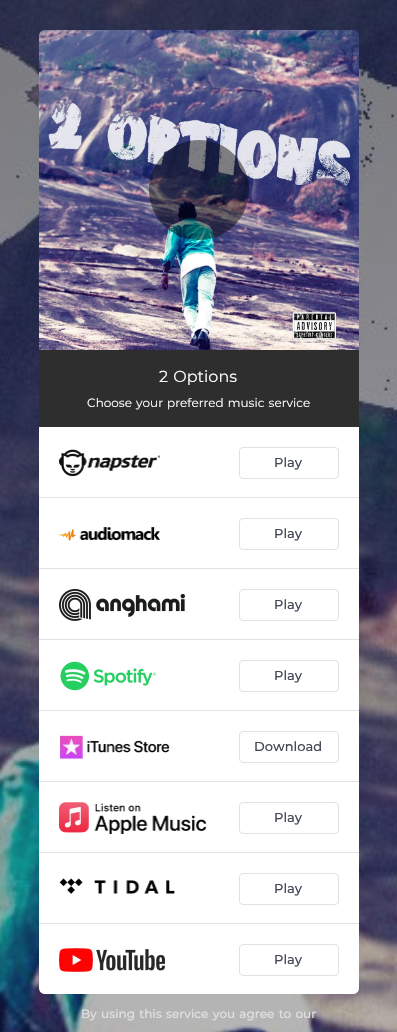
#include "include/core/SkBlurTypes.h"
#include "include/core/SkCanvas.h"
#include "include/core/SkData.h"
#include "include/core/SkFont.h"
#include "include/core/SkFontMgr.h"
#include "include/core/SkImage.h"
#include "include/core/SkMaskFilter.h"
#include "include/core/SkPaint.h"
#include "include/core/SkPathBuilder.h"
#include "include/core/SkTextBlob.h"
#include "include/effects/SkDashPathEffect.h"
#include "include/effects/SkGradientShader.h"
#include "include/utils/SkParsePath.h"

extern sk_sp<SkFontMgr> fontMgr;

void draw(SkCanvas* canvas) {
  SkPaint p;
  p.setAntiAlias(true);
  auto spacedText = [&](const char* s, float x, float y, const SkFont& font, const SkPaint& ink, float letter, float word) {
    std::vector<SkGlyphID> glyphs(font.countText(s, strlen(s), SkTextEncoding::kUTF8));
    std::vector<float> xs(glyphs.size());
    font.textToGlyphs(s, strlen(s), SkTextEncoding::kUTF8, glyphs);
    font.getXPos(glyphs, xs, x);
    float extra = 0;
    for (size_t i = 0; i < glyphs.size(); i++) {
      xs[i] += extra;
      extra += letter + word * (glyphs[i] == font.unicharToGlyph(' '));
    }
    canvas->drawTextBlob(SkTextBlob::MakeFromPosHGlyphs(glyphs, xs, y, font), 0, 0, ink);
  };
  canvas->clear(SK_ColorWHITE);
  canvas->drawImageRect(SkImages::DeferredFromEncodedData(SkData::MakeFromFileName("images/1.png")), SkRect::MakeLTRB(0, 0, 397, 1032), SkSamplingOptions());
  canvas->drawImageRect(SkImages::DeferredFromEncodedData(SkData::MakeFromFileName("images/2.png")), SkRect::MakeLTRB(39, 30, 359, 350), SkSamplingOptions());
  p.setColor(SkColorSetARGB(115, 0, 0, 0));
  canvas->drawCircle(199, 190, 50, p);
  p.setColor(SkColorSetRGB(46, 46, 46));
  canvas->drawRect(SkRect::MakeLTRB(39, 350, 359, 427), p);
  p.setColor(SK_ColorWHITE);
  canvas->drawPath(SkPathBuilder().moveTo(39, 427).lineTo(359, 427).lineTo(359, 988).cubicTo(359, 991.5f, 356.5f, 994, 353, 994).lineTo(45, 994).cubicTo(41.5f, 994, 39, 991.5f, 39, 988).close().detach(), p);
  p.setColor(SkColorSetRGB(225, 225, 228));
  canvas->drawRect(SkRect::MakeLTRB(39, 497, 359, 498), p);
  canvas->drawImageRect(SkImages::DeferredFromEncodedData(SkData::MakeFromFileName("images/3.png")), SkRect::MakeLTRB(59, 449, 160, 477), SkSamplingOptions());
  p.setStyle(SkPaint::kStroke_Style);
  p.setStrokeWidth(1);
  canvas->drawRoundRect(SkRect::MakeLTRB(239.5f, 447.5f, 338.5f, 478.5f), 3.5f, 3.5f, p);
  p.setStyle(SkPaint::kFill_Style);
  canvas->drawRect(SkRect::MakeLTRB(39, 568, 359, 569), p);
  canvas->drawImageRect(SkImages::DeferredFromEncodedData(SkData::MakeFromFileName("images/4.png")), SkRect::MakeLTRB(59, 527, 160, 541), SkSamplingOptions());
  p.setStyle(SkPaint::kStroke_Style);
  canvas->drawRoundRect(SkRect::MakeLTRB(239.5f, 518.5f, 338.5f, 549.5f), 3.5f, 3.5f, p);
  p.setStyle(SkPaint::kFill_Style);
  canvas->drawRect(SkRect::MakeLTRB(39, 639, 359, 640), p);
  canvas->drawImageRect(SkImages::DeferredFromEncodedData(SkData::MakeFromFileName("images/5.png")), SkRect::MakeLTRB(59, 589, 185, 621), SkSamplingOptions());
  p.setStyle(SkPaint::kStroke_Style);
  canvas->drawRoundRect(SkRect::MakeLTRB(239.5f, 589.5f, 338.5f, 620.5f), 3.5f, 3.5f, p);
  p.setStyle(SkPaint::kFill_Style);
  canvas->drawRect(SkRect::MakeLTRB(39, 710, 359, 711), p);
  canvas->drawImageRect(SkImages::DeferredFromEncodedData(SkData::MakeFromFileName("images/6.png")), SkRect::MakeLTRB(60, 661, 156, 691), SkSamplingOptions());
  p.setStyle(SkPaint::kStroke_Style);
  canvas->drawRoundRect(SkRect::MakeLTRB(239.5f, 660.5f, 338.5f, 691.5f), 3.5f, 3.5f, p);
  p.setStyle(SkPaint::kFill_Style);
  canvas->drawRect(SkRect::MakeLTRB(39, 781, 359, 782), p);
  canvas->drawImageRect(SkImages::DeferredFromEncodedData(SkData::MakeFromFileName("images/7.png")), SkRect::MakeLTRB(60, 735, 170, 759), SkSamplingOptions());
  p.setStyle(SkPaint::kStroke_Style);
  canvas->drawRoundRect(SkRect::MakeLTRB(239.5f, 731.5f, 338.5f, 762.5f), 3.5f, 3.5f, p);
  p.setStyle(SkPaint::kFill_Style);
  canvas->drawRect(SkRect::MakeLTRB(39, 852, 359, 853), p);
  canvas->drawImageRect(SkImages::DeferredFromEncodedData(SkData::MakeFromFileName("images/8.png")), SkRect::MakeLTRB(59, 802, 206, 834), SkSamplingOptions());
  p.setStyle(SkPaint::kStroke_Style);
  canvas->drawRoundRect(SkRect::MakeLTRB(239.5f, 802.5f, 338.5f, 833.5f), 3.5f, 3.5f, p);
  p.setStyle(SkPaint::kFill_Style);
  canvas->drawRect(SkRect::MakeLTRB(39, 923, 359, 924), p);
  canvas->drawImageRect(SkImages::DeferredFromEncodedData(SkData::MakeFromFileName("images/9.png")), SkRect::MakeLTRB(59, 878, 175, 894), SkSamplingOptions());
  p.setStyle(SkPaint::kStroke_Style);
  canvas->drawRoundRect(SkRect::MakeLTRB(239.5f, 873.5f, 338.5f, 904.5f), 3.5f, 3.5f, p);
  canvas->drawImageRect(SkImages::DeferredFromEncodedData(SkData::MakeFromFileName("images/10.png")), SkRect::MakeLTRB(59, 948, 165, 972), SkSamplingOptions());
  canvas->drawRoundRect(SkRect::MakeLTRB(239.5f, 944.5f, 338.5f, 975.5f), 3.5f, 3.5f, p);
  SkFont font1(fontMgr->matchFamilyStyle("Montserrat", SkFontStyle::Normal()), 13);
  font1.setSubpixel(true);
  p.setStyle(SkPaint::kFill_Style);
  p.setColor(SkColorSetRGB(118, 115, 151));
  spacedText("s", 163, 85, font1, p, 0, 1);
  SkFont font2(fontMgr->matchFamilyStyle("Montserrat", SkFontStyle::Normal()), 16);
  font2.setSubpixel(true);
  p.setColor(SK_ColorWHITE);
  spacedText("2 Options", 159, 382, font2, p, 0, 1);
  SkFont font3(fontMgr->matchFamilyStyle("Montserrat", SkFontStyle::Normal()), 12);
  font3.setSubpixel(true);
  spacedText("Choose your preferred music service", 87, 407, font3, p, 0, 1);
  SkFont font4(fontMgr->matchFamilyStyle("Montserrat", SkFontStyle(500, SkFontStyle::kNormal_Width, SkFontStyle::kUpright_Slant)), 13);
  font4.setSubpixel(true);
  p.setColor(SkColorSetRGB(65, 71, 84));
  canvas->drawString("Play", 274, 467, font4, p);
  canvas->drawString("Play", 274, 538, font4, p);
  canvas->drawString("Play", 274, 609, font4, p);
  canvas->drawString("Play", 274, 680, font4, p);
  canvas->drawString("Download", 254, 751, font4, p);
  canvas->drawString("Play", 274, 822, font4, p);
  canvas->drawString("Play", 274, 893, font4, p);
  canvas->drawString("Play", 274, 964, font4, p);
  SkFont font5(fontMgr->matchFamilyStyle("Montserrat", SkFontStyle(500, SkFontStyle::kNormal_Width, SkFontStyle::kUpright_Slant)), 12);
  font5.setSubpixel(true);
  p.setColor(SkColorSetRGB(224, 224, 225));
  spacedText("By using this service you agree to our", 81, 1018, font5, p, 0, 1);
}
